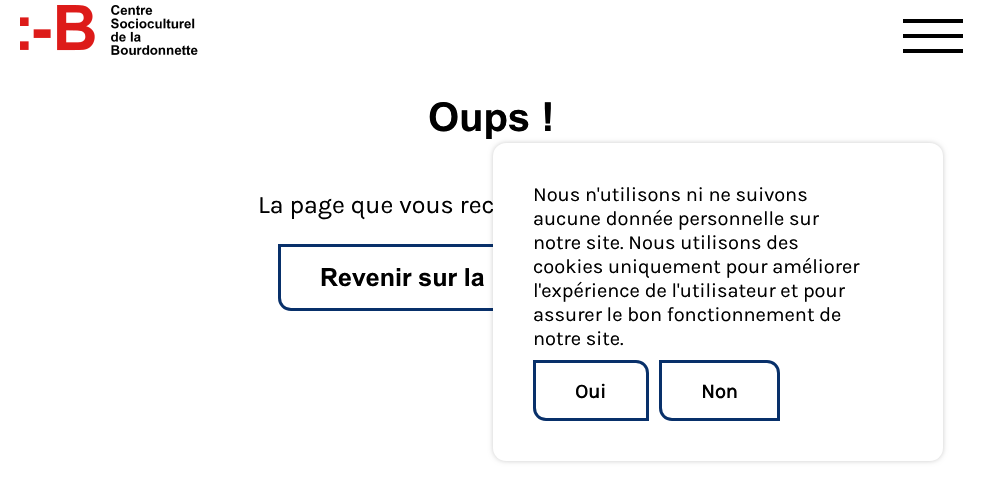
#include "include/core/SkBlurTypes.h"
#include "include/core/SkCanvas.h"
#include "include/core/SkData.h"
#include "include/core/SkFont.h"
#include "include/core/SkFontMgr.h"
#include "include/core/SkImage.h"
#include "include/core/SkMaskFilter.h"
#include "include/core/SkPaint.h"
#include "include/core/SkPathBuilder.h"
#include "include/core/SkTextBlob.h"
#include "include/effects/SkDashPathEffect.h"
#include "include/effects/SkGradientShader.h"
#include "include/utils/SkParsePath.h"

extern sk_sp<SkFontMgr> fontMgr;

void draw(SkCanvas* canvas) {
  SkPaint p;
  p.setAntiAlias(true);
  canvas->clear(SK_ColorWHITE);
  canvas->drawImageRect(SkImages::DeferredFromEncodedData(SkData::MakeFromFileName("images/1.png")), SkRect::MakeLTRB(20, 5, 198, 55), SkSamplingOptions());
  p.setColor(SK_ColorBLACK);
  canvas->drawRect(SkRect::MakeLTRB(903, 19, 963, 23), p);
  canvas->drawRect(SkRect::MakeLTRB(903, 34, 963, 38), p);
  canvas->drawRect(SkRect::MakeLTRB(903, 49, 963, 53), p);
  p.setStyle(SkPaint::kStroke_Style);
  p.setStrokeWidth(3);
  p.setColor(SkColorSetRGB(8, 48, 106));
  canvas->drawPath(SkPathBuilder().moveTo(279.5f, 245.5f).lineTo(692, 245.5f).cubicTo(698.5f, 245.5f, 703.5f, 250.5f, 703.5f, 257).lineTo(703.5f, 309.5f).lineTo(291, 309.5f).cubicTo(284.5f, 309.5f, 279.5f, 304.5f, 279.5f, 298).close().detach(), p);
  p.setStyle(SkPaint::kFill_Style);
  p.setColor(SkColorSetARGB(51, 0, 0, 0));
  p.setMaskFilter(SkMaskFilter::MakeBlur(kNormal_SkBlurStyle, 2.5f));
  canvas->drawRoundRect(SkRect::MakeLTRB(493, 143, 943, 461), 13, 13, p);
  p.setMaskFilter(nullptr);
  SkFont font1(fontMgr->matchFamilyStyle("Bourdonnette", SkFontStyle::Bold()), 40);
  font1.setSubpixel(true);
  p.setColor(SK_ColorBLACK);
  canvas->drawString("Oups !", 428, 131, font1, p);
  SkFont font2(fontMgr->matchFamilyStyle("Karla", SkFontStyle::Normal()), 25);
  font2.setSubpixel(true);
  canvas->drawString("La page que vous rec", 258, 213, font2, p);
  SkFont font3(fontMgr->matchFamilyStyle("Bourdonnette", SkFontStyle::Bold()), 25);
  font3.setSubpixel(true);
  canvas->drawString("Revenir sur la", 320, 286, font3, p);
  p.setColor(SK_ColorWHITE);
  canvas->drawRoundRect(SkRect::MakeLTRB(493, 143, 943, 461), 13, 13, p);
  SkFont font4(fontMgr->matchFamilyStyle("Karla", SkFontStyle::Normal()), 20);
  font4.setSubpixel(true);
  p.setColor(SK_ColorBLACK);
  canvas->drawString("Nous n'utilisons ni ne suivons", 533, 201, font4, p);
  canvas->drawString("aucune donnée personnelle sur", 533, 225, font4, p);
  canvas->drawString("notre site. Nous utilisons des", 533, 249, font4, p);
  canvas->drawString("cookies uniquement pour améliorer", 533, 273, font4, p);
  canvas->drawString("l'expérience de l'utilisateur et pour", 533, 297, font4, p);
  canvas->drawString("assurer le bon fonctionnement de", 533, 321, font4, p);
  canvas->drawString("notre site.", 533, 345, font4, p);
  p.setStyle(SkPaint::kStroke_Style);
  p.setColor(SkColorSetRGB(8, 48, 106));
  canvas->drawPath(SkPathBuilder().moveTo(534.5f, 361.5f).lineTo(636, 361.5f).cubicTo(642.5f, 361.5f, 647.5f, 366.5f, 647.5f, 373).lineTo(647.5f, 419.5f).lineTo(546, 419.5f).cubicTo(539.5f, 419.5f, 534.5f, 414.5f, 534.5f, 408).close().detach(), p);
  SkFont font5(fontMgr->matchFamilyStyle("Karla", SkFontStyle::Bold()), 20);
  font5.setSubpixel(true);
  p.setStyle(SkPaint::kFill_Style);
  p.setColor(SK_ColorBLACK);
  canvas->drawString("Oui", 575, 398, font5, p);
  p.setStyle(SkPaint::kStroke_Style);
  p.setColor(SkColorSetRGB(8, 48, 106));
  canvas->drawPath(SkPathBuilder().moveTo(660.5f, 361.5f).lineTo(767, 361.5f).cubicTo(773.5f, 361.5f, 778.5f, 366.5f, 778.5f, 373).lineTo(778.5f, 419.5f).lineTo(672, 419.5f).cubicTo(665.5f, 419.5f, 660.5f, 414.5f, 660.5f, 408).close().detach(), p);
  p.setStyle(SkPaint::kFill_Style);
  p.setColor(SK_ColorBLACK);
  canvas->drawString("Non", 701, 398, font5, p);
}
